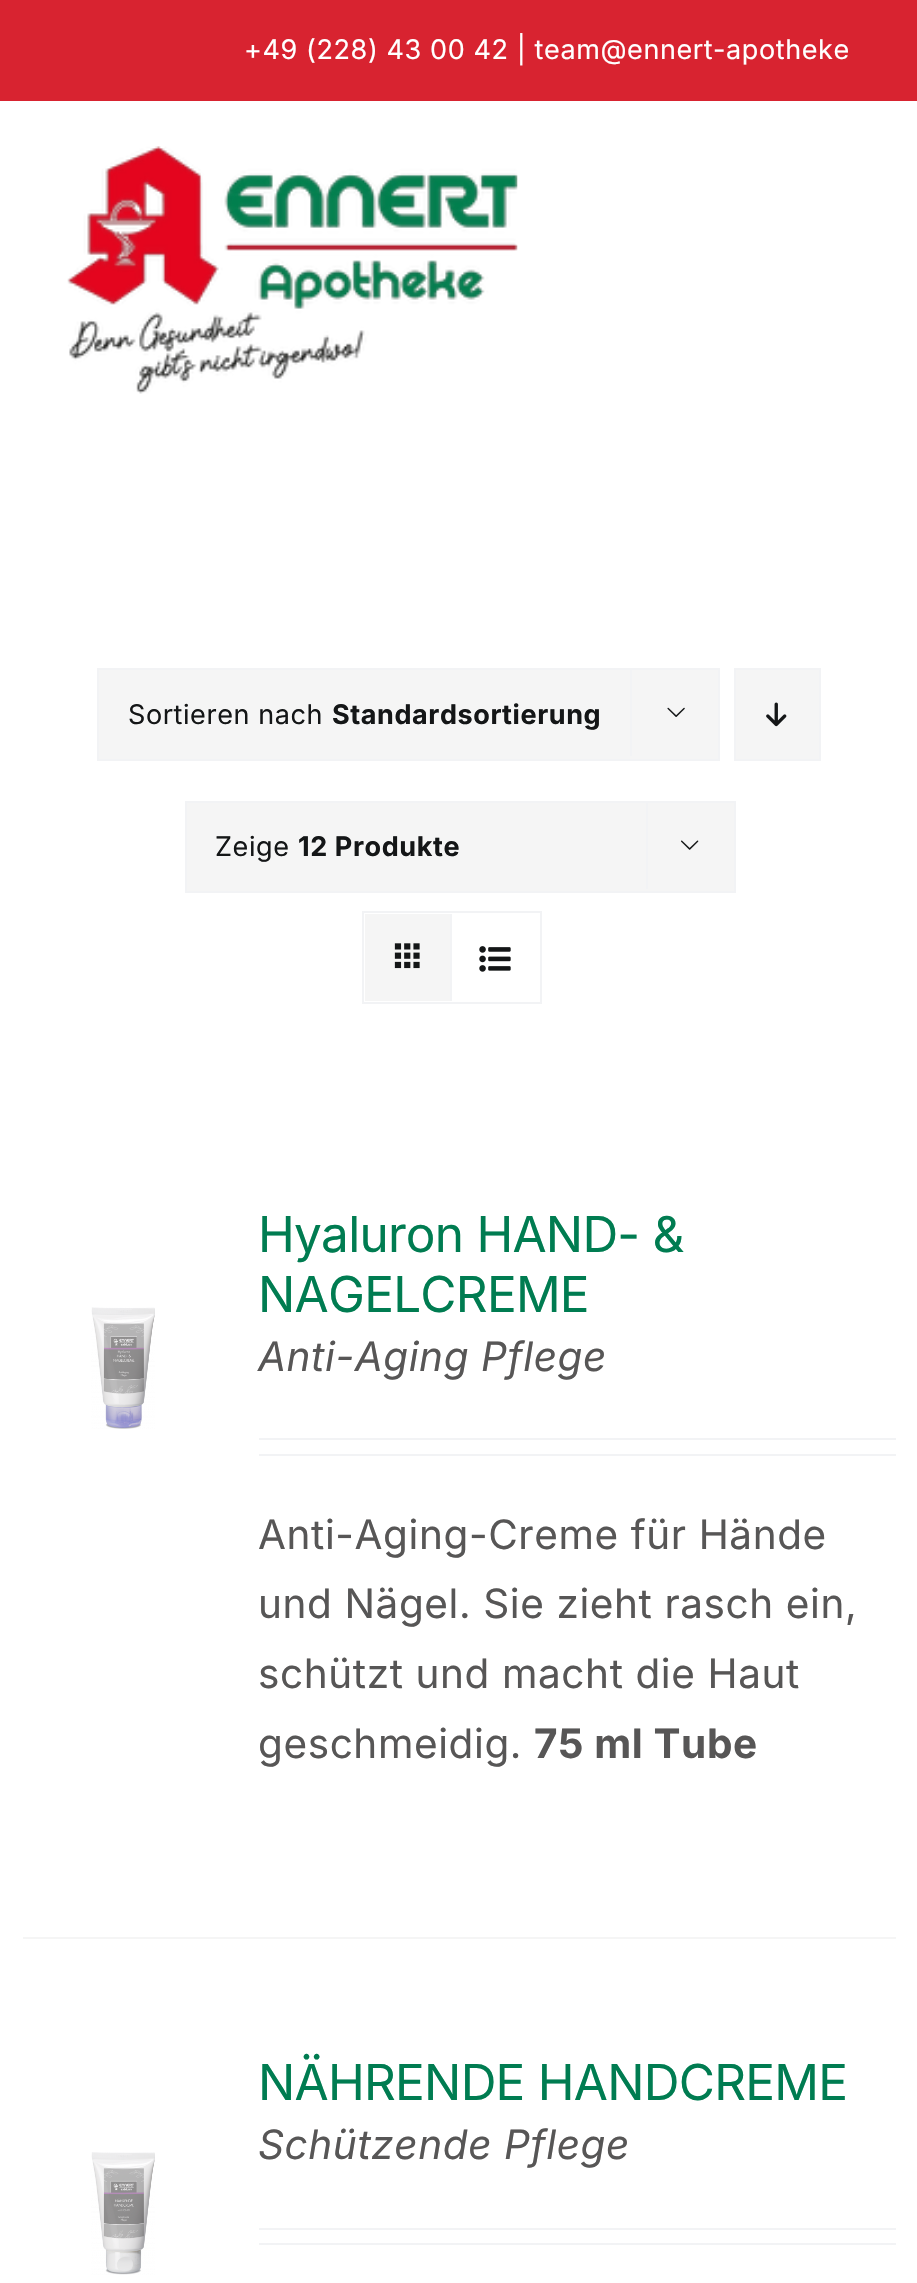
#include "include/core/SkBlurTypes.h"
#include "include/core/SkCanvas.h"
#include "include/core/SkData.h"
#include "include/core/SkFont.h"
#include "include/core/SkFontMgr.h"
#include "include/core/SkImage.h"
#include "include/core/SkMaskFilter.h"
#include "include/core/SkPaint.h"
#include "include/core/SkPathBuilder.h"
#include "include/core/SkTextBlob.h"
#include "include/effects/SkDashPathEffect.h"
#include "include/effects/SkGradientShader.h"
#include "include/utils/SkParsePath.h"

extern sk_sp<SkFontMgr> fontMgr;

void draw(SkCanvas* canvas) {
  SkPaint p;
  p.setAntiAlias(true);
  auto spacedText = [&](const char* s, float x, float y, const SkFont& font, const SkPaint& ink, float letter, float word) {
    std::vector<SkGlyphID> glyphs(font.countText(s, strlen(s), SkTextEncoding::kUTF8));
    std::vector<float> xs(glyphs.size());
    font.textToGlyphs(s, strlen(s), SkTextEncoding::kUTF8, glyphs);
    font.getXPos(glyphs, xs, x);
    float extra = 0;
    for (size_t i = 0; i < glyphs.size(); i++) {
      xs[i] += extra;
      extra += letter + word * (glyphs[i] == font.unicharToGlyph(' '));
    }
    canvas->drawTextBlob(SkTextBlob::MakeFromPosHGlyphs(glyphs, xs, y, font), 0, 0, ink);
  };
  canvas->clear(SK_ColorWHITE);
  p.setColor(SkColorSetRGB(216, 35, 48));
  canvas->drawRect(SkRect::MakeLTRB(0, 0, 917, 101), p);
  canvas->drawImageRect(SkImages::DeferredFromEncodedData(SkData::MakeFromFileName("images/1.png")), SkRect::MakeLTRB(67, 146, 518, 394), SkSamplingOptions());
  p.setColor(SkColorSetRGB(245, 245, 245));
  canvas->drawRect(SkRect::MakeLTRB(98, 669, 719, 760), p);
  p.setStyle(SkPaint::kStroke_Style);
  p.setStrokeWidth(2);
  p.setColor(SkColorSetRGB(242, 243, 245));
  canvas->drawRect(SkRect::MakeLTRB(98, 669, 719, 760), p);
  p.setStyle(SkPaint::kFill_Style);
  canvas->drawRect(SkRect::MakeLTRB(630, 668, 632, 756), p);
  canvas->drawImageRect(SkImages::DeferredFromEncodedData(SkData::MakeFromFileName("images/2.png")), SkRect::MakeLTRB(667, 707, 685, 717), SkSamplingOptions());
  p.setColor(SkColorSetRGB(245, 245, 245));
  canvas->drawRect(SkRect::MakeLTRB(735, 669, 820, 760), p);
  p.setStyle(SkPaint::kStroke_Style);
  p.setColor(SkColorSetRGB(242, 243, 245));
  canvas->drawRect(SkRect::MakeLTRB(735, 669, 820, 760), p);
  canvas->drawImageRect(SkImages::DeferredFromEncodedData(SkData::MakeFromFileName("images/3.png")), SkRect::MakeLTRB(766, 702, 787, 727), SkSamplingOptions());
  p.setStyle(SkPaint::kFill_Style);
  p.setColor(SkColorSetRGB(245, 245, 245));
  canvas->drawRect(SkRect::MakeLTRB(186, 802, 735, 892), p);
  p.setStyle(SkPaint::kStroke_Style);
  p.setColor(SkColorSetRGB(242, 243, 245));
  canvas->drawRect(SkRect::MakeLTRB(186, 802, 735, 892), p);
  p.setStyle(SkPaint::kFill_Style);
  canvas->drawRect(SkRect::MakeLTRB(646, 801, 648, 889), p);
  canvas->drawImageRect(SkImages::DeferredFromEncodedData(SkData::MakeFromFileName("images/4.png")), SkRect::MakeLTRB(681, 840, 699, 850), SkSamplingOptions());
  p.setStyle(SkPaint::kStroke_Style);
  canvas->drawRect(SkRect::MakeLTRB(363, 912, 541, 1003), p);
  p.setStyle(SkPaint::kFill_Style);
  p.setColor(SkColorSetRGB(245, 245, 245));
  canvas->drawRect(SkRect::MakeLTRB(365, 914, 450, 1001), p);
  p.setColor(SkColorSetRGB(242, 243, 245));
  canvas->drawRect(SkRect::MakeLTRB(450, 914, 452, 1001), p);
  canvas->drawImageRect(SkImages::DeferredFromEncodedData(SkData::MakeFromFileName("images/5.png")), SkRect::MakeLTRB(394, 943, 420, 969), SkSamplingOptions());
  canvas->drawImageRect(SkImages::DeferredFromEncodedData(SkData::MakeFromFileName("images/6.png")), SkRect::MakeLTRB(479, 946, 511, 972), SkSamplingOptions());
  p.setColor(SkColorSetRGB(245, 245, 245));
  canvas->drawRect(SkRect::MakeLTRB(23, 1937, 896, 1939), p);
  canvas->drawImageRect(SkImages::DeferredFromEncodedData(SkData::MakeFromFileName("images/7.png")), SkRect::MakeLTRB(91, 1307, 155, 1429), SkSamplingOptions());
  p.setColor(SkColorSetRGB(242, 243, 245));
  canvas->drawRect(SkRect::MakeLTRB(259, 1438, 896, 1440), p);
  canvas->drawRect(SkRect::MakeLTRB(259, 1454, 896, 1456), p);
  canvas->drawImageRect(SkImages::DeferredFromEncodedData(SkData::MakeFromFileName("images/8.png")), SkRect::MakeLTRB(91, 2152, 155, 2275), SkSamplingOptions());
  canvas->drawRect(SkRect::MakeLTRB(259, 2228, 896, 2230), p);
  canvas->drawRect(SkRect::MakeLTRB(259, 2243, 896, 2245), p);
  SkFont font1(fontMgr->matchFamilyStyle("Inter", SkFontStyle::Normal()), 27);
  font1.setSubpixel(true);
  p.setColor(SK_ColorWHITE);
  spacedText("+49 (228) 43 00 42 | team@ennert-apotheke", 244, 59, font1, p, 0.6f, 0);
  p.setColor(SkColorSetRGB(20, 22, 23));
  spacedText("Sortieren nach", 128, 724, font1, p, 0.6f, 0);
  SkFont font2(fontMgr->matchFamilyStyle("Inter", SkFontStyle::Bold()), 27);
  font2.setSubpixel(true);
  spacedText("Standardsortierung", 332, 724, font2, p, 0.6f, 0);
  spacedText("Zeige", 215, 856, font1, p, 0.6f, 0);
  spacedText("12 Produkte", 298, 856, font2, p, 0.6f, 0);
  SkFont font3(fontMgr->matchFamilyStyle("Inter", SkFontStyle::Normal()), 49.5f);
  font3.setSubpixel(true);
  p.setColor(SkColorSetRGB(0, 124, 81));
  spacedText("Hyaluron HAND- &", 258, 1252, font3, p, -0.75f, 0);
  spacedText("NAGELCREME", 258, 1312, font3, p, -0.75f, 0);
  SkFont font4(fontMgr->matchFamilyStyle("Inter", SkFontStyle::Italic()), 40.5f);
  font4.setSubpixel(true);
  p.setColor(SkColorSetRGB(87, 86, 86));
  spacedText("Anti-Aging Pflege", 258, 1371, font4, p, 0.6f, 0);
  SkFont font5(fontMgr->matchFamilyStyle("Inter", SkFontStyle::Normal()), 40.5f);
  font5.setSubpixel(true);
  spacedText("Anti-Aging-Creme für Hände", 258, 1549, font5, p, 0.6f, 0);
  spacedText("und Nägel. Sie zieht rasch ein,", 258, 1618, font5, p, 0.6f, 0);
  spacedText("schützt und macht die Haut", 258, 1688, font5, p, 0.6f, 0);
  spacedText("geschmeidig.", 258, 1758, font5, p, 0.6f, 0);
  SkFont font6(fontMgr->matchFamilyStyle("Inter", SkFontStyle::Bold()), 40.5f);
  font6.setSubpixel(true);
  spacedText("75 ml Tube", 534, 1758, font6, p, 0.6f, 0);
  p.setColor(SkColorSetRGB(0, 124, 81));
  spacedText("NÄHRENDE HANDCREME", 258, 2100, font3, p, -0.75f, 0);
  p.setColor(SkColorSetRGB(87, 86, 86));
  spacedText("Schützende Pflege", 258, 2159, font4, p, 0.6f, 0);
}
